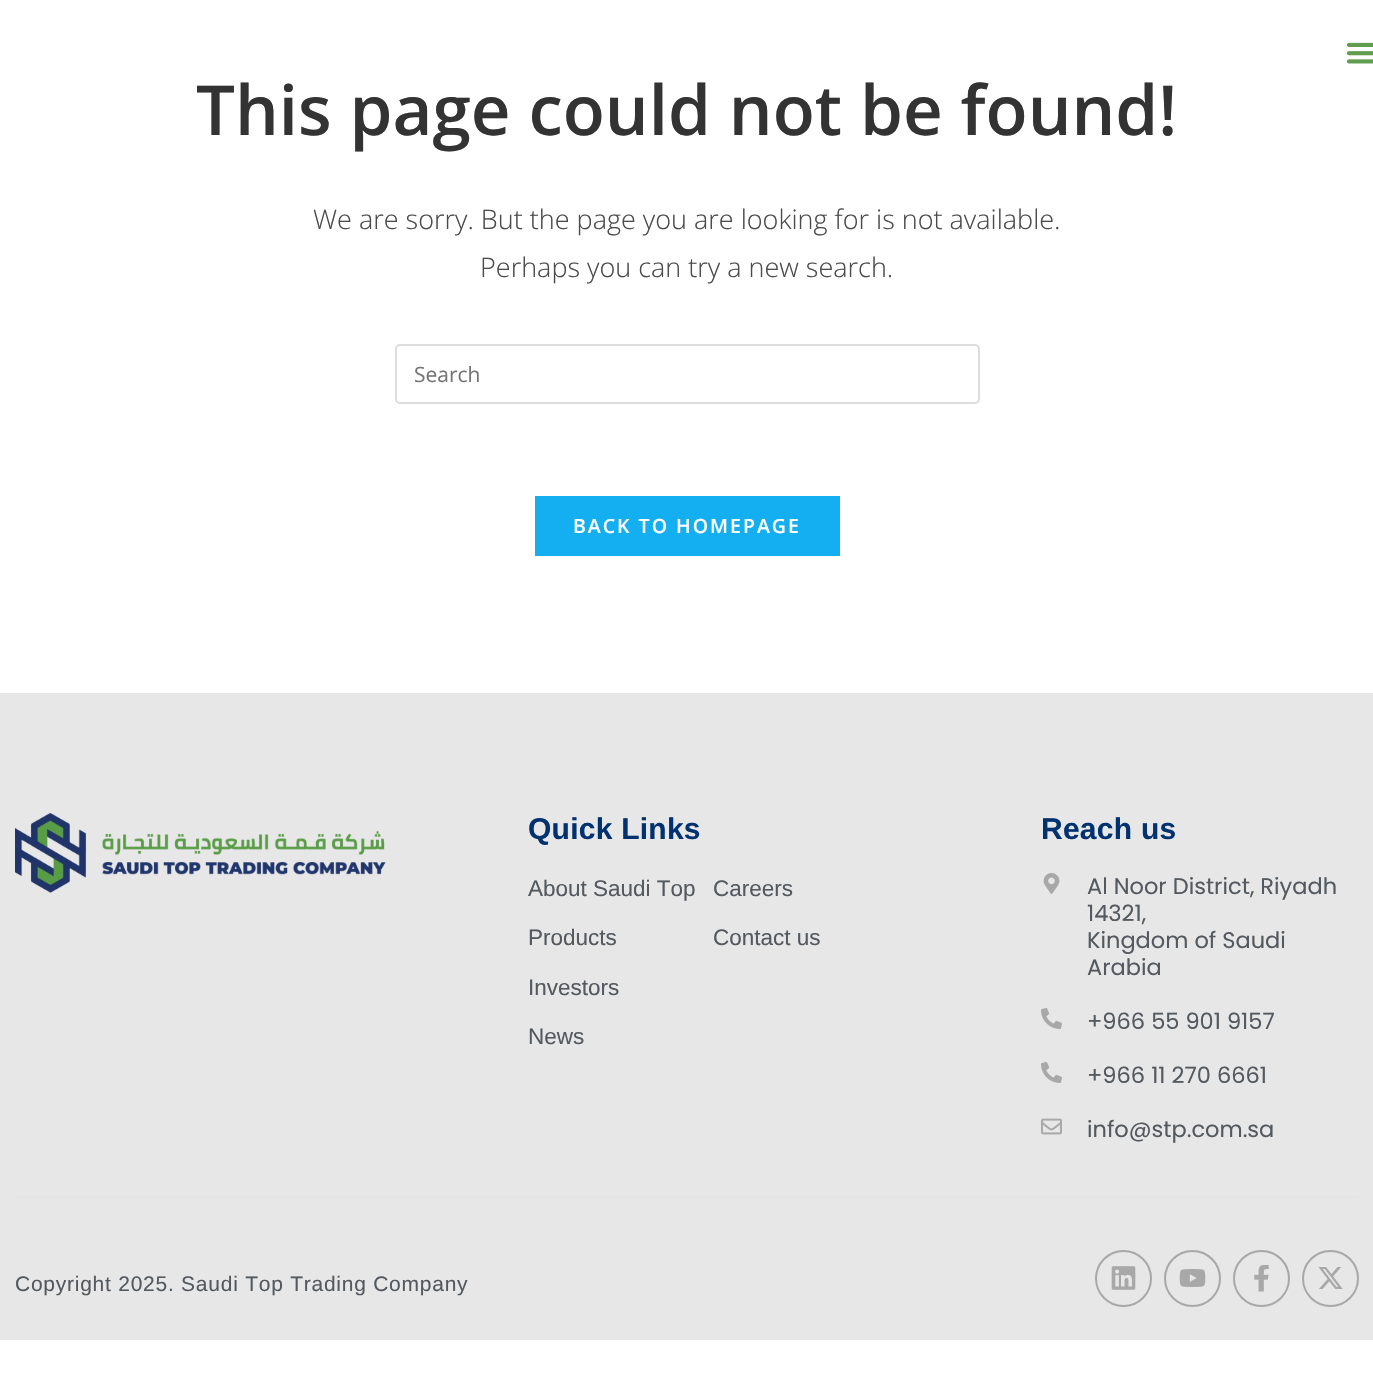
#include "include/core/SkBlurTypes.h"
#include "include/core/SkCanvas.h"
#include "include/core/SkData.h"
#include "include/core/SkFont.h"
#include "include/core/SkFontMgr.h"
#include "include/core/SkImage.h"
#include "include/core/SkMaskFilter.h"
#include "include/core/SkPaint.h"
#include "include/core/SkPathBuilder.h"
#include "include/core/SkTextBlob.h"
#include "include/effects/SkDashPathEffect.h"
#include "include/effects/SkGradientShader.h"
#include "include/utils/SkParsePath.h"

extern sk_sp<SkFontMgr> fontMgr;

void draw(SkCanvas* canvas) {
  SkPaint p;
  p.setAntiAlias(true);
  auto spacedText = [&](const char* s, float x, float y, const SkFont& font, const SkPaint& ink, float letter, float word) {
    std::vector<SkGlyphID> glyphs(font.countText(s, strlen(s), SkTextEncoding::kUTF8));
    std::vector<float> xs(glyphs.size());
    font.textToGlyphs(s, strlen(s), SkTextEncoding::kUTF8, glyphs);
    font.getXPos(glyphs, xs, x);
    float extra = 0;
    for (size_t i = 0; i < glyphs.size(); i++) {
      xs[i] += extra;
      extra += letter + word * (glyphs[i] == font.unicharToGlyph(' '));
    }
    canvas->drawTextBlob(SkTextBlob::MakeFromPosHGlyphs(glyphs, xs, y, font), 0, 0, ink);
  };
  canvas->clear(SK_ColorWHITE);
  canvas->drawImageRect(SkImages::DeferredFromEncodedData(SkData::MakeFromFileName("images/1.png")), SkRect::MakeLTRB(1346, 42, 1373, 64), SkSamplingOptions());
  p.setStyle(SkPaint::kStroke_Style);
  p.setStrokeWidth(2);
  p.setColor(SkColorSetRGB(221, 221, 221));
  canvas->drawRoundRect(SkRect::MakeLTRB(396, 345, 979, 403), 4, 4, p);
  p.setStyle(SkPaint::kFill_Style);
  p.setColor(SkColorSetRGB(19, 175, 240));
  canvas->drawRect(SkRect::MakeLTRB(535, 496, 840, 556), p);
  p.setColor(SkColorSetRGB(231, 231, 231));
  canvas->drawRect(SkRect::MakeLTRB(0, 693, 1373, 1340), p);
  canvas->drawImageRect(SkImages::DeferredFromEncodedData(SkData::MakeFromFileName("images/2.png")), SkRect::MakeLTRB(15, 813, 386, 893), SkSamplingOptions());
  canvas->drawImageRect(SkImages::DeferredFromEncodedData(SkData::MakeFromFileName("images/3.png")), SkRect::MakeLTRB(1043, 873, 1060, 894), SkSamplingOptions());
  canvas->drawImageRect(SkImages::DeferredFromEncodedData(SkData::MakeFromFileName("images/4.png")), SkRect::MakeLTRB(1041, 1008, 1062, 1029), SkSamplingOptions());
  canvas->drawImageRect(SkImages::DeferredFromEncodedData(SkData::MakeFromFileName("images/4.png")), SkRect::MakeLTRB(1041, 1062, 1062, 1083), SkSamplingOptions());
  canvas->drawImageRect(SkImages::DeferredFromEncodedData(SkData::MakeFromFileName("images/5.png")), SkRect::MakeLTRB(1041, 1118, 1062, 1135), SkSamplingOptions());
  p.setColor(SkColorSetRGB(228, 228, 228));
  canvas->drawRect(SkRect::MakeLTRB(15, 1196, 1359, 1198), p);
  p.setStyle(SkPaint::kStroke_Style);
  p.setColor(SkColorSetRGB(168, 168, 168));
  canvas->drawCircle(1123.5f, 1278.5f, 27.5f, p);
  canvas->drawImageRect(SkImages::DeferredFromEncodedData(SkData::MakeFromFileName("images/6.png")), SkRect::MakeLTRB(1111, 1266, 1136, 1290), SkSamplingOptions());
  canvas->drawCircle(1192.5f, 1278.5f, 27.5f, p);
  canvas->drawImageRect(SkImages::DeferredFromEncodedData(SkData::MakeFromFileName("images/7.png")), SkRect::MakeLTRB(1179, 1269, 1206, 1287), SkSamplingOptions());
  canvas->drawCircle(1261.5f, 1278.5f, 27.5f, p);
  canvas->drawImageRect(SkImages::DeferredFromEncodedData(SkData::MakeFromFileName("images/8.png")), SkRect::MakeLTRB(1254, 1265, 1269, 1292), SkSamplingOptions());
  canvas->drawCircle(1330.5f, 1278.5f, 27.5f, p);
  canvas->drawImageRect(SkImages::DeferredFromEncodedData(SkData::MakeFromFileName("images/9.png")), SkRect::MakeLTRB(1318, 1267, 1343, 1289), SkSamplingOptions());
  SkFont font1(fontMgr->matchFamilyStyle("Open Sans", SkFontStyle(600, SkFontStyle::kNormal_Width, SkFontStyle::kUpright_Slant)), 69);
  font1.setSubpixel(true);
  p.setStyle(SkPaint::kFill_Style);
  p.setColor(SkColorSetRGB(51, 51, 51));
  canvas->drawString("This page could not be found!", 196, 135, font1, p);
  SkFont font2(fontMgr->matchFamilyStyle("Open Sans", SkFontStyle(300, SkFontStyle::kNormal_Width, SkFontStyle::kUpright_Slant)), 27);
  font2.setSubpixel(true);
  p.setColor(SkColorSetRGB(74, 74, 74));
  canvas->drawString("We are sorry. But the page you are looking for is not available.", 313, 229, font2, p);
  canvas->drawString("Perhaps you can try a new search.", 480, 277, font2, p);
  SkFont font3(fontMgr->matchFamilyStyle("Open Sans", SkFontStyle::Normal()), 21);
  font3.setSubpixel(true);
  p.setColor(SkColorSetRGB(117, 117, 117));
  canvas->drawString("Search", 414, 382, font3, p);
  SkFont font4(fontMgr->matchFamilyStyle("Open Sans", SkFontStyle(600, SkFontStyle::kNormal_Width, SkFontStyle::kUpright_Slant)), 19.5f);
  font4.setSubpixel(true);
  p.setColor(SK_ColorWHITE);
  spacedText("BACK TO HOMEPAGE", 573, 533, font4, p, 2, 0);
  SkFont font5(fontMgr->matchFamilyStyle("Liberation Sans", SkFontStyle::Bold()), 30);
  font5.setSubpixel(true);
  p.setColor(SkColorSetRGB(0, 49, 112));
  spacedText("Quick Links", 528, 839, font5, p, 0.25f, 0);
  SkFont font6(fontMgr->matchFamilyStyle("Liberation Sans", SkFontStyle::Normal()), 22.5f);
  font6.setSubpixel(true);
  p.setColor(SkColorSetRGB(84, 89, 95));
  canvas->drawString("About Saudi Top", 528, 896, font6, p);
  canvas->drawString("Products", 528, 945, font6, p);
  canvas->drawString("Investors", 528, 995, font6, p);
  canvas->drawString("News", 528, 1044, font6, p);
  canvas->drawString("Careers", 713, 896, font6, p);
  canvas->drawString("Contact us", 713, 945, font6, p);
  p.setColor(SkColorSetRGB(0, 49, 112));
  spacedText("Reach us", 1041, 839, font5, p, 0.25f, 0);
  SkFont font7(fontMgr->matchFamilyStyle("Poppins", SkFontStyle::Normal()), 22.5f);
  font7.setSubpixel(true);
  p.setColor(SkColorSetRGB(84, 89, 95));
  canvas->drawString("Al Noor District, Riyadh", 1087, 894, font7, p);
  canvas->drawString("14321,", 1087, 921, font7, p);
  canvas->drawString("Kingdom of Saudi", 1087, 948, font7, p);
  canvas->drawString("Arabia", 1087, 975, font7, p);
  canvas->drawString("+966 55 901 9157", 1087, 1029, font7, p);
  canvas->drawString("+966 11 270 6661", 1087, 1083, font7, p);
  canvas->drawString("info@stp.com.sa", 1087, 1137, font7, p);
  SkFont font8(fontMgr->matchFamilyStyle("Liberation Sans", SkFontStyle::Normal()), 21);
  font8.setSubpixel(true);
  spacedText("Copyright 2025. Saudi Top Trading Company", 15, 1291, font8, p, 0.75f, 0);
}
